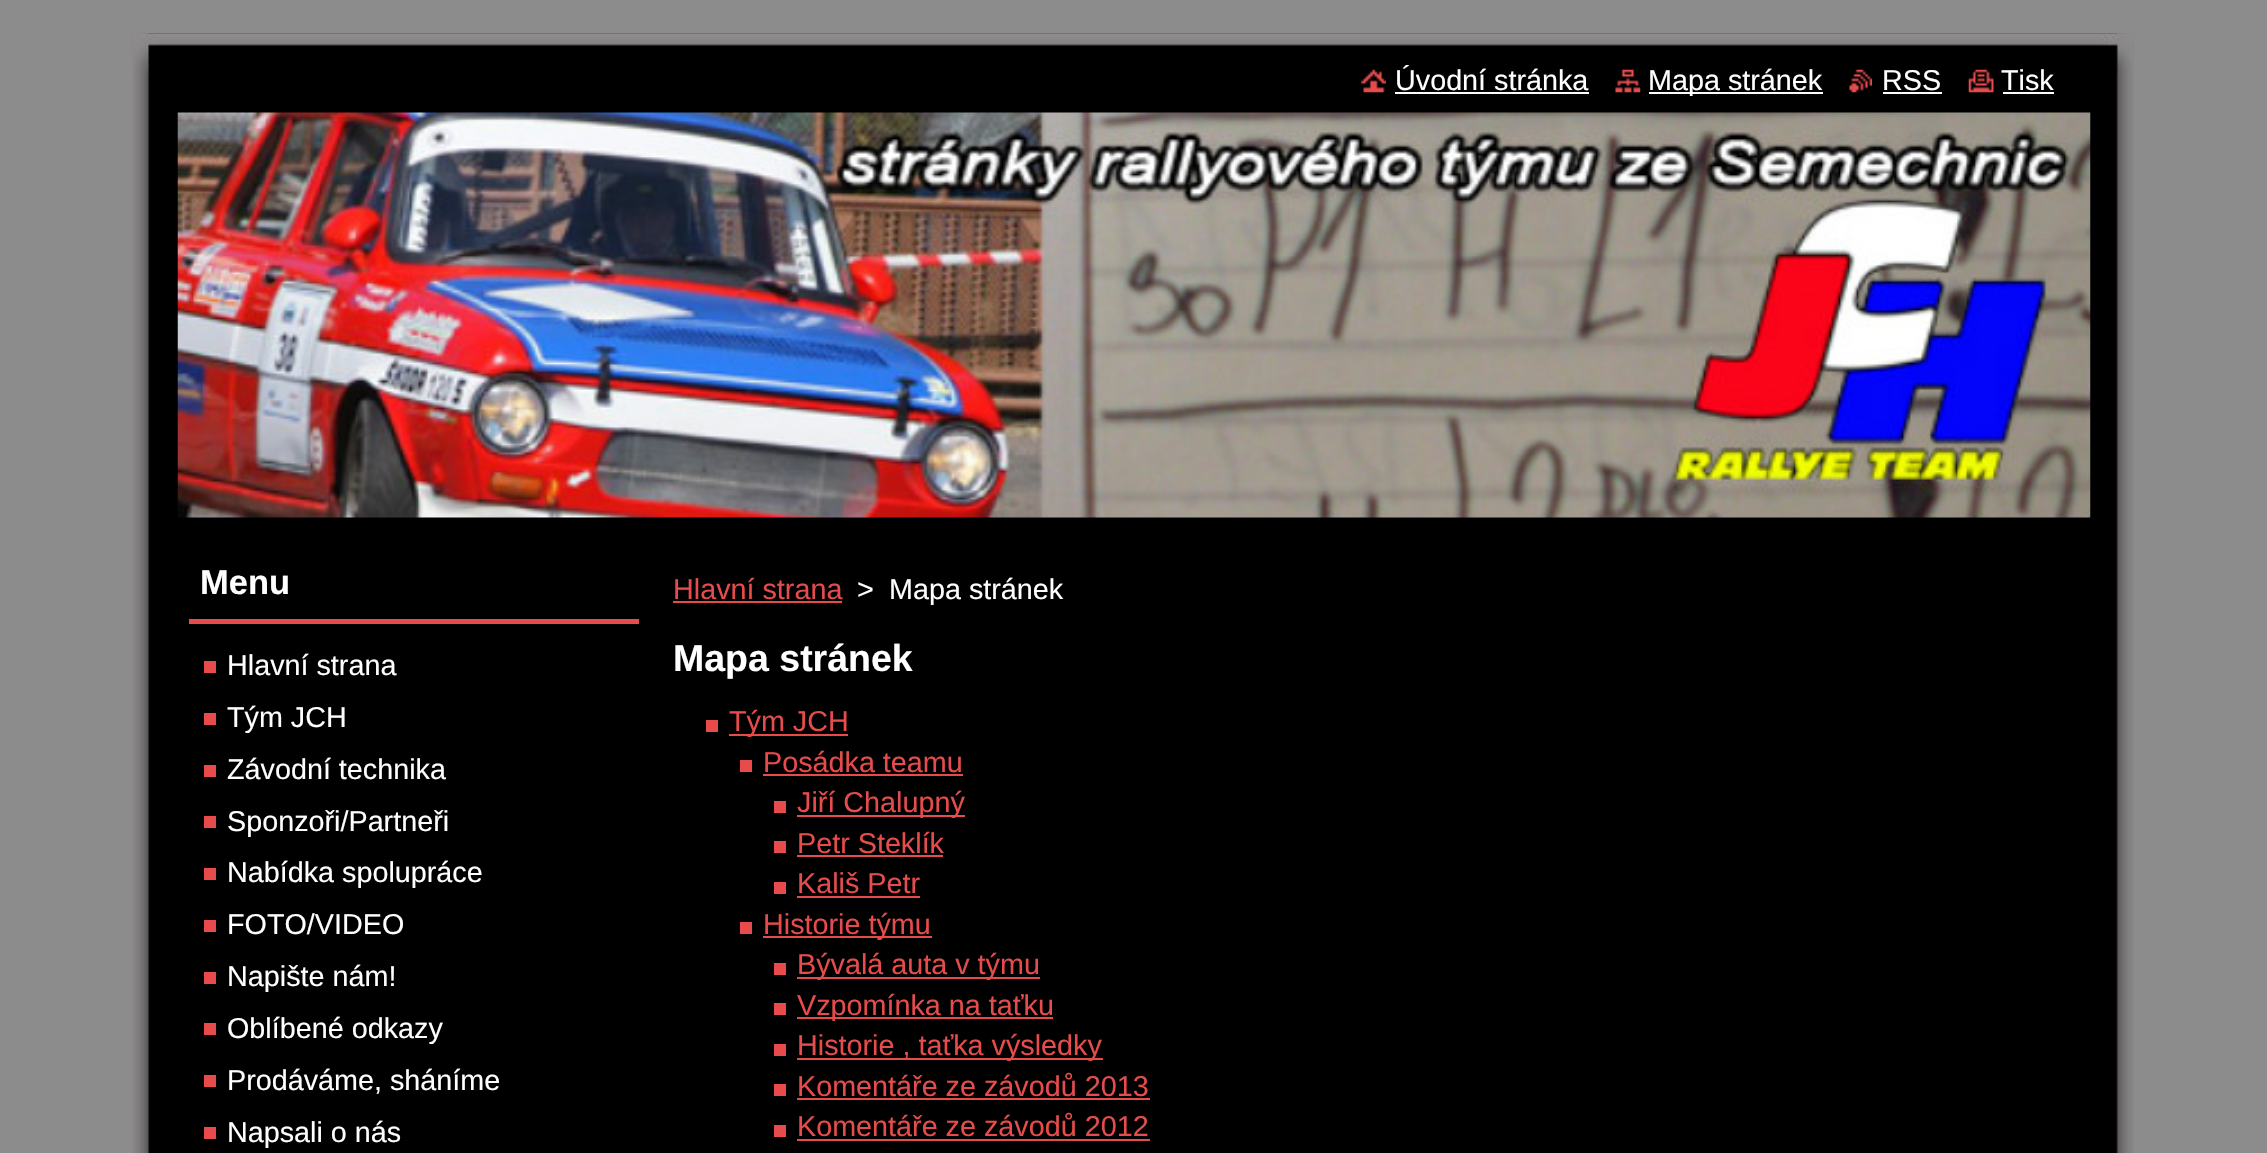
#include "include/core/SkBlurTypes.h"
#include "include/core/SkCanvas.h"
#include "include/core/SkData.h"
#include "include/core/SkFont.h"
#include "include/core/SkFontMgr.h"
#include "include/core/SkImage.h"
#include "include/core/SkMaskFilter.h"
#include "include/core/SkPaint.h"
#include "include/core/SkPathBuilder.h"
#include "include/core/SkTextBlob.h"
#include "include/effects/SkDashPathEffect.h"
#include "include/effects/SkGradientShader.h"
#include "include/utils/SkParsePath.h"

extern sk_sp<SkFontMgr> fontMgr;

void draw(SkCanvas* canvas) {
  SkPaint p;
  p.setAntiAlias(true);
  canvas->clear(SkColorSetRGB(140, 140, 140));
  canvas->drawImageRect(SkImages::DeferredFromEncodedData(SkData::MakeFromFileName("images/1.png")), SkRect::MakeLTRB(132, 33, 2134, 1140), SkSamplingOptions());
  canvas->drawImageRect(SkImages::DeferredFromEncodedData(SkData::MakeFromFileName("images/2.png")), SkRect::MakeLTRB(133, 33, 2133, 74), SkSamplingOptions());
  canvas->drawImageRect(SkImages::DeferredFromEncodedData(SkData::MakeFromFileName("images/3.png")), SkRect::MakeLTRB(132, 1140, 2134, 1153), SkSamplingOptions());
  canvas->drawImageRect(SkImages::DeferredFromEncodedData(SkData::MakeFromFileName("images/4.png")), SkRect::MakeLTRB(1361, 69, 1386, 93), SkSamplingOptions());
  p.setColor(SK_ColorWHITE);
  canvas->drawRect(SkRect::MakeLTRB(1395, 92, 1589, 94), p);
  canvas->drawImageRect(SkImages::DeferredFromEncodedData(SkData::MakeFromFileName("images/5.png")), SkRect::MakeLTRB(1615, 69, 1641, 93), SkSamplingOptions());
  canvas->drawRect(SkRect::MakeLTRB(1649, 92, 1823, 94), p);
  canvas->drawImageRect(SkImages::DeferredFromEncodedData(SkData::MakeFromFileName("images/6.png")), SkRect::MakeLTRB(1849, 69, 1872, 93), SkSamplingOptions());
  canvas->drawRect(SkRect::MakeLTRB(1883, 92, 1942, 94), p);
  canvas->drawImageRect(SkImages::DeferredFromEncodedData(SkData::MakeFromFileName("images/7.png")), SkRect::MakeLTRB(1968, 69, 1994, 93), SkSamplingOptions());
  canvas->drawRect(SkRect::MakeLTRB(2003, 92, 2054, 94), p);
  canvas->drawImageRect(SkImages::DeferredFromEncodedData(SkData::MakeFromFileName("images/8.png")), SkRect::MakeLTRB(177, 112, 2091, 518), SkSamplingOptions());
  p.setColor(SkColorSetRGB(231, 76, 76));
  canvas->drawRect(SkRect::MakeLTRB(189, 619, 639, 624), p);
  p.setColor(SkColorSetRGB(231, 75, 76));
  canvas->drawRect(SkRect::MakeLTRB(204, 661, 216, 673), p);
  canvas->drawRect(SkRect::MakeLTRB(204, 713, 216, 725), p);
  canvas->drawRect(SkRect::MakeLTRB(204, 765, 216, 777), p);
  canvas->drawRect(SkRect::MakeLTRB(204, 816, 216, 828), p);
  canvas->drawRect(SkRect::MakeLTRB(204, 868, 216, 880), p);
  canvas->drawRect(SkRect::MakeLTRB(204, 920, 216, 932), p);
  canvas->drawRect(SkRect::MakeLTRB(204, 972, 216, 984), p);
  canvas->drawRect(SkRect::MakeLTRB(204, 1023, 216, 1035), p);
  canvas->drawRect(SkRect::MakeLTRB(204, 1075, 216, 1087), p);
  canvas->drawRect(SkRect::MakeLTRB(204, 1127, 216, 1139), p);
  p.setColor(SkColorSetRGB(231, 76, 76));
  canvas->drawRect(SkRect::MakeLTRB(673, 601, 842, 603), p);
  p.setColor(SkColorSetRGB(231, 75, 76));
  canvas->drawRect(SkRect::MakeLTRB(706, 720, 718, 732), p);
  p.setColor(SkColorSetRGB(231, 76, 76));
  canvas->drawRect(SkRect::MakeLTRB(729, 734, 848, 736), p);
  p.setColor(SkColorSetRGB(231, 75, 76));
  canvas->drawRect(SkRect::MakeLTRB(740, 760, 752, 772), p);
  p.setColor(SkColorSetRGB(231, 76, 76));
  canvas->drawRect(SkRect::MakeLTRB(763, 774, 963, 776), p);
  p.setColor(SkColorSetRGB(231, 75, 76));
  canvas->drawRect(SkRect::MakeLTRB(774, 801, 786, 813), p);
  p.setColor(SkColorSetRGB(231, 76, 76));
  canvas->drawRect(SkRect::MakeLTRB(797, 815, 965, 817), p);
  p.setColor(SkColorSetRGB(231, 75, 76));
  canvas->drawRect(SkRect::MakeLTRB(774, 841, 786, 853), p);
  p.setColor(SkColorSetRGB(231, 76, 76));
  canvas->drawRect(SkRect::MakeLTRB(797, 855, 943, 857), p);
  p.setColor(SkColorSetRGB(231, 75, 76));
  canvas->drawRect(SkRect::MakeLTRB(774, 882, 786, 894), p);
  p.setColor(SkColorSetRGB(231, 76, 76));
  canvas->drawRect(SkRect::MakeLTRB(797, 896, 920, 898), p);
  p.setColor(SkColorSetRGB(231, 75, 76));
  canvas->drawRect(SkRect::MakeLTRB(740, 922, 752, 934), p);
  p.setColor(SkColorSetRGB(231, 76, 76));
  canvas->drawRect(SkRect::MakeLTRB(763, 936, 932, 938), p);
  p.setColor(SkColorSetRGB(231, 75, 76));
  canvas->drawRect(SkRect::MakeLTRB(774, 963, 786, 975), p);
  p.setColor(SkColorSetRGB(231, 76, 76));
  canvas->drawRect(SkRect::MakeLTRB(797, 977, 1040, 979), p);
  p.setColor(SkColorSetRGB(231, 75, 76));
  canvas->drawRect(SkRect::MakeLTRB(774, 1003, 786, 1015), p);
  p.setColor(SkColorSetRGB(231, 76, 76));
  canvas->drawRect(SkRect::MakeLTRB(797, 1017, 1053, 1019), p);
  p.setColor(SkColorSetRGB(231, 75, 76));
  canvas->drawRect(SkRect::MakeLTRB(774, 1044, 786, 1056), p);
  p.setColor(SkColorSetRGB(231, 76, 76));
  canvas->drawRect(SkRect::MakeLTRB(797, 1058, 1103, 1060), p);
  p.setColor(SkColorSetRGB(231, 75, 76));
  canvas->drawRect(SkRect::MakeLTRB(774, 1084, 786, 1096), p);
  p.setColor(SkColorSetRGB(231, 76, 76));
  canvas->drawRect(SkRect::MakeLTRB(797, 1098, 1150, 1100), p);
  p.setColor(SkColorSetRGB(231, 75, 76));
  canvas->drawRect(SkRect::MakeLTRB(774, 1125, 786, 1137), p);
  p.setColor(SkColorSetRGB(231, 76, 76));
  canvas->drawRect(SkRect::MakeLTRB(797, 1139, 1150, 1141), p);
  SkFont font1(fontMgr->matchFamilyStyle("Liberation Sans", SkFontStyle::Normal()), 28.75f);
  font1.setSubpixel(true);
  p.setColor(SK_ColorWHITE);
  canvas->drawString("Úvodní stránka", 1395, 90, font1, p);
  canvas->drawString("Mapa stránek", 1648, 90, font1, p);
  canvas->drawString("RSS", 1882, 90, font1, p);
  canvas->drawString("Tisk", 2001, 90, font1, p);
  SkFont font2(fontMgr->matchFamilyStyle("Liberation Sans", SkFontStyle::Bold()), 34.5f);
  font2.setSubpixel(true);
  canvas->drawString("Menu", 200, 594, font2, p);
  canvas->drawString("Hlavní strana", 227, 675, font1, p);
  canvas->drawString("Tým JCH", 227, 727, font1, p);
  canvas->drawString("Závodní technika", 227, 779, font1, p);
  canvas->drawString("Sponzoři/Partneři", 227, 831, font1, p);
  canvas->drawString("Nabídka spolupráce", 227, 882, font1, p);
  canvas->drawString("FOTO/VIDEO", 227, 934, font1, p);
  canvas->drawString("Napište nám!", 227, 986, font1, p);
  canvas->drawString("Oblíbené odkazy", 227, 1038, font1, p);
  canvas->drawString("Prodáváme, sháníme", 227, 1090, font1, p);
  canvas->drawString("Napsali o nás", 227, 1142, font1, p);
  p.setColor(SkColorSetRGB(231, 76, 76));
  canvas->drawString("Hlavní strana", 673, 599, font1, p);
  p.setColor(SK_ColorWHITE);
  canvas->drawString(">", 857, 599, font1, p);
  canvas->drawString("Mapa stránek", 889, 599, font1, p);
  SkFont font3(fontMgr->matchFamilyStyle("Liberation Sans", SkFontStyle::Bold()), 37.5f);
  font3.setSubpixel(true);
  canvas->drawString("Mapa stránek", 673, 671, font3, p);
  p.setColor(SkColorSetRGB(231, 76, 76));
  canvas->drawString("Tým JCH", 729, 731, font1, p);
  canvas->drawString("Posádka teamu", 763, 772, font1, p);
  canvas->drawString("Jiří Chalupný", 797, 812, font1, p);
  canvas->drawString("Petr Steklík", 797, 853, font1, p);
  canvas->drawString("Kališ Petr", 797, 893, font1, p);
  canvas->drawString("Historie týmu", 763, 934, font1, p);
  canvas->drawString("Bývalá auta v týmu", 797, 974, font1, p);
  canvas->drawString("Vzpomínka na taťku", 797, 1015, font1, p);
  canvas->drawString("Historie , taťka výsledky", 797, 1055, font1, p);
  canvas->drawString("Komentáře ze závodů 2013", 797, 1096, font1, p);
  canvas->drawString("Komentáře ze závodů 2012", 797, 1136, font1, p);
}
